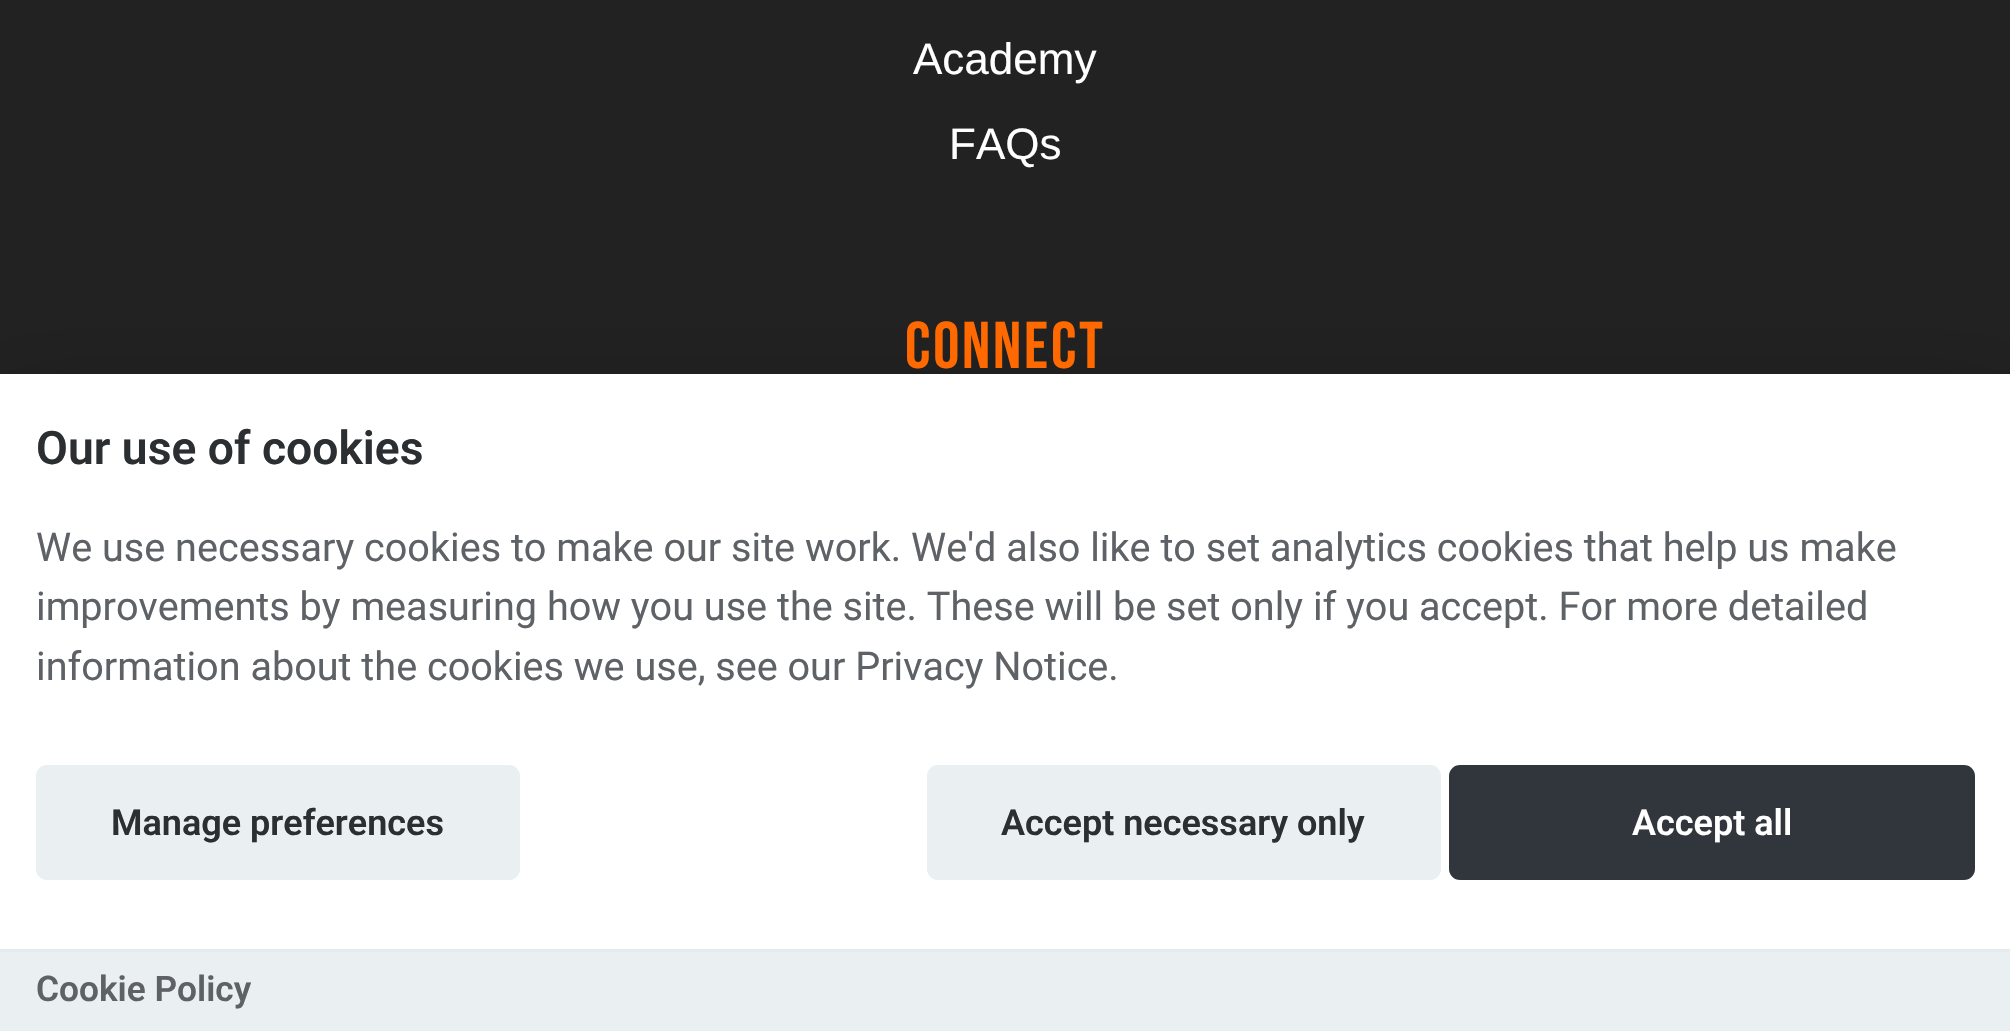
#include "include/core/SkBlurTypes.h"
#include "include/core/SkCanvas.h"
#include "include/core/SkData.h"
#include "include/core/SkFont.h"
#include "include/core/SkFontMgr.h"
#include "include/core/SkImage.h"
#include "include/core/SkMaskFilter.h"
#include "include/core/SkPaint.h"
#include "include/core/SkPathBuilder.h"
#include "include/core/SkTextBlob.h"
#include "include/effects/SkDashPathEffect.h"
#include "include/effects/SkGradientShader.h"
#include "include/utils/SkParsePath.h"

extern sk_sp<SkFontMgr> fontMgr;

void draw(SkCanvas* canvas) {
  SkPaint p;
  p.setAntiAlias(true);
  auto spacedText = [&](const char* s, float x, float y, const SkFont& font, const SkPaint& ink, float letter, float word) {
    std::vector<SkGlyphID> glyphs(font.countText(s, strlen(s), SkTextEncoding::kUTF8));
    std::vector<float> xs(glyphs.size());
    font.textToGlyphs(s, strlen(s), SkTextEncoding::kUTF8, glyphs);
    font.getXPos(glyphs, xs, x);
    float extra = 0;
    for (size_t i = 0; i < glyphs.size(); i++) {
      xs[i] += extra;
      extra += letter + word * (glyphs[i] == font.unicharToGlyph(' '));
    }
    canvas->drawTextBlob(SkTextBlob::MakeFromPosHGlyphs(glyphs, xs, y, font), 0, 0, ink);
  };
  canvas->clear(SkColorSetRGB(34, 34, 34));
  p.setColor(SkColorSetARGB(77, 0, 0, 2));
  p.setMaskFilter(SkMaskFilter::MakeBlur(kNormal_SkBlurStyle, 41));
  canvas->drawRect(SkRect::MakeLTRB(0, 402, 2010, 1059), p);
  p.setMaskFilter(nullptr);
  p.setColor(SK_ColorWHITE);
  canvas->drawRect(SkRect::MakeLTRB(0, 374, 2010, 949), p);
  p.setColor(SkColorSetRGB(234, 239, 242));
  canvas->drawRoundRect(SkRect::MakeLTRB(37.5f, 766.5f, 518.5f, 878.5f), 9.5f, 9.5f, p);
  p.setStyle(SkPaint::kStroke_Style);
  p.setStrokeWidth(3);
  canvas->drawRoundRect(SkRect::MakeLTRB(37.5f, 766.5f, 518.5f, 878.5f), 9.5f, 9.5f, p);
  p.setStyle(SkPaint::kFill_Style);
  canvas->drawRoundRect(SkRect::MakeLTRB(928.5f, 766.5f, 1439.5f, 878.5f), 9.5f, 9.5f, p);
  p.setStyle(SkPaint::kStroke_Style);
  canvas->drawRoundRect(SkRect::MakeLTRB(928.5f, 766.5f, 1439.5f, 878.5f), 9.5f, 9.5f, p);
  p.setStyle(SkPaint::kFill_Style);
  p.setColor(SkColorSetRGB(48, 54, 60));
  canvas->drawRoundRect(SkRect::MakeLTRB(1450.5f, 766.5f, 1973.5f, 878.5f), 9.5f, 9.5f, p);
  p.setStyle(SkPaint::kStroke_Style);
  canvas->drawRoundRect(SkRect::MakeLTRB(1450.5f, 766.5f, 1973.5f, 878.5f), 9.5f, 9.5f, p);
  p.setStyle(SkPaint::kFill_Style);
  p.setColor(SkColorSetRGB(234, 239, 242));
  canvas->drawRect(SkRect::MakeLTRB(0, 952, 2010, 1031), p);
  p.setColor(SkColorSetRGB(228, 234, 237));
  canvas->drawRect(SkRect::MakeLTRB(0, 949, 2010, 952), p);
  SkFont font1(fontMgr->matchFamilyStyle("Liberation Sans", SkFontStyle::Normal()), 44);
  font1.setSubpixel(true);
  p.setColor(SK_ColorWHITE);
  canvas->drawString("Academy", 913, 74, font1, p);
  canvas->drawString("FAQs", 949, 159, font1, p);
  SkFont font2(fontMgr->matchFamilyStyle("Bebas Neue", SkFontStyle::Bold()), 66);
  font2.setSubpixel(true);
  p.setColor(SkColorSetRGB(255, 105, 0));
  spacedText("Connect", 905, 368, font2, p, 2.75f, 0);
  SkFont font3(fontMgr->matchFamilyStyle("Roboto", SkFontStyle(600, SkFontStyle::kNormal_Width, SkFontStyle::kUpright_Slant)), 46.25f);
  font3.setSubpixel(true);
  p.setColor(SkColorSetRGB(44, 47, 49));
  canvas->drawString("Our use of cookies", 36, 464, font3, p);
  SkFont font4(fontMgr->matchFamilyStyle("Roboto", SkFontStyle::Normal()), 39.6f);
  font4.setSubpixel(true);
  p.setColor(SkColorSetRGB(94, 98, 102));
  canvas->drawString("We use necessary cookies to make our site work. We'd also like to set analytics cookies that help us make", 36, 561, font4, p);
  canvas->drawString("improvements by measuring how you use the site. These will be set only if you accept. For more detailed", 36, 620, font4, p);
  canvas->drawString("information about the cookies we use, see our Privacy Notice.", 36, 680, font4, p);
  SkFont font5(fontMgr->matchFamilyStyle("Roboto", SkFontStyle(600, SkFontStyle::kNormal_Width, SkFontStyle::kUpright_Slant)), 36);
  font5.setSubpixel(true);
  p.setColor(SkColorSetRGB(44, 47, 49));
  canvas->drawString("Manage preferences", 111, 835, font5, p);
  canvas->drawString("Accept necessary only", 1001, 835, font5, p);
  p.setColor(SK_ColorWHITE);
  canvas->drawString("Accept all", 1632, 835, font5, p);
  SkFont font6(fontMgr->matchFamilyStyle("Roboto", SkFontStyle(600, SkFontStyle::kNormal_Width, SkFontStyle::kUpright_Slant)), 35.25f);
  font6.setSubpixel(true);
  p.setColor(SkColorSetRGB(94, 98, 102));
  canvas->drawString("Cookie Policy", 36, 1001, font6, p);
}
